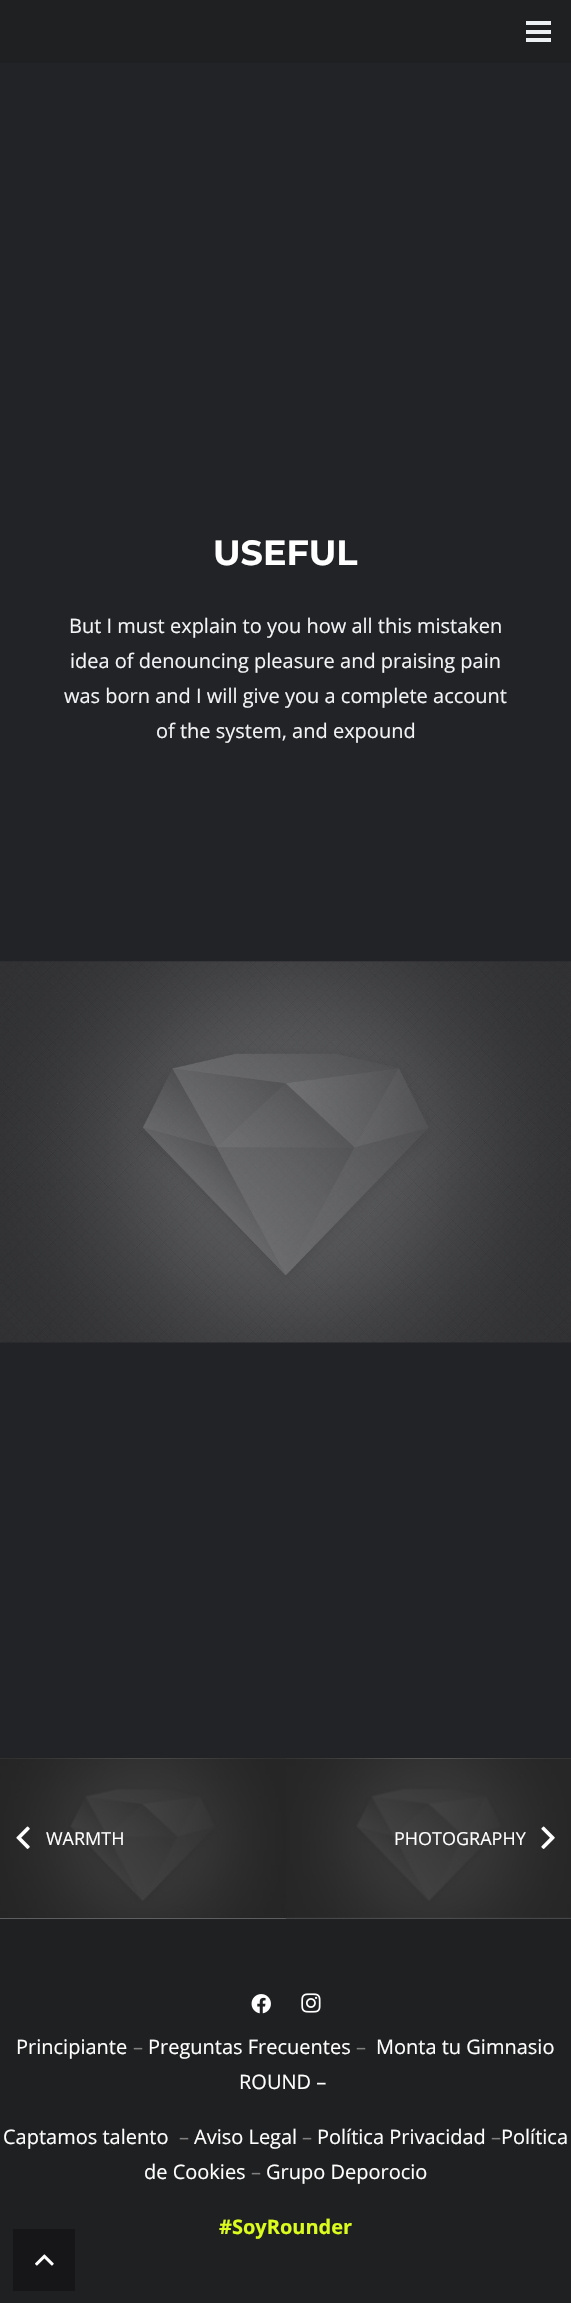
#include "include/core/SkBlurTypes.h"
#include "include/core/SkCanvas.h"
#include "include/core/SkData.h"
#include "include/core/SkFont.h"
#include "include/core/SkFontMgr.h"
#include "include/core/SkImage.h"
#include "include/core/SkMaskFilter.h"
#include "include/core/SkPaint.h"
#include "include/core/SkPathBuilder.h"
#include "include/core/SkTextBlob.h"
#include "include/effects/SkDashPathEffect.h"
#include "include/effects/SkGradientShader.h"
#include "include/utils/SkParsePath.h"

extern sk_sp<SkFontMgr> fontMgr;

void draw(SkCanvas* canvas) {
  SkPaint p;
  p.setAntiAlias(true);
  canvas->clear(SK_ColorWHITE);
  p.setColor(SkColorSetRGB(106, 106, 106));
  canvas->drawRect(SkRect::MakeLTRB(0, 1918, 286, 1919), p);
  p.setColor(SkColorSetRGB(31, 32, 34));
  canvas->drawRect(SkRect::MakeLTRB(0, 0, 571, 63), p);
  p.setColor(SkColorSetRGB(237, 240, 242));
  canvas->drawRect(SkRect::MakeLTRB(526, 30, 551, 34), p);
  canvas->drawRect(SkRect::MakeLTRB(526, 21, 551, 25), p);
  canvas->drawRect(SkRect::MakeLTRB(526, 38, 551, 42), p);
  p.setColor(SkColorSetRGB(34, 35, 39));
  canvas->drawRect(SkRect::MakeLTRB(0, 63, 571, 1759), p);
  canvas->drawImageRect(SkImages::DeferredFromEncodedData(SkData::MakeFromFileName("images/1.png")), SkRect::MakeLTRB(0, 961, 571, 1343), SkSamplingOptions());
  canvas->drawImageRect(SkImages::DeferredFromEncodedData(SkData::MakeFromFileName("images/2.png")), SkRect::MakeLTRB(0, 1758, 287, 1919), SkSamplingOptions());
  canvas->drawImageRect(SkImages::DeferredFromEncodedData(SkData::MakeFromFileName("images/3.png")), SkRect::MakeLTRB(16, 1826, 30, 1849), SkSamplingOptions());
  canvas->drawImageRect(SkImages::DeferredFromEncodedData(SkData::MakeFromFileName("images/4.png")), SkRect::MakeLTRB(286, 1758, 571, 1919), SkSamplingOptions());
  p.setColor(SkColorSetARGB(168, 30, 30, 30));
  canvas->drawRect(SkRect::MakeLTRB(286, 1759, 571, 1919), p);
  canvas->drawImageRect(SkImages::DeferredFromEncodedData(SkData::MakeFromFileName("images/5.png")), SkRect::MakeLTRB(541, 1826, 555, 1849), SkSamplingOptions());
  p.setColor(SkColorSetRGB(31, 32, 34));
  canvas->drawRect(SkRect::MakeLTRB(0, 1919, 571, 2303), p);
  canvas->drawImageRect(SkImages::DeferredFromEncodedData(SkData::MakeFromFileName("images/6.png")), SkRect::MakeLTRB(251, 1994, 271, 2014), SkSamplingOptions());
  canvas->drawImageRect(SkImages::DeferredFromEncodedData(SkData::MakeFromFileName("images/7.png")), SkRect::MakeLTRB(301, 1993, 321, 2013), SkSamplingOptions());
  p.setColor(SkColorSetRGB(22, 22, 24));
  canvas->drawRect(SkRect::MakeLTRB(13, 2229, 75, 2291), p);
  canvas->drawImageRect(SkImages::DeferredFromEncodedData(SkData::MakeFromFileName("images/8.png")), SkRect::MakeLTRB(35, 2254, 54, 2266), SkSamplingOptions());
  SkFont font1(fontMgr->matchFamilyStyle("Montserrat", SkFontStyle::Bold()), 35);
  font1.setSubpixel(true);
  p.setColor(SK_ColorWHITE);
  canvas->drawString("USEFUL", 213, 565, font1, p);
  SkFont font2(fontMgr->matchFamilyStyle("Open Sans", SkFontStyle::Normal()), 20);
  font2.setSubpixel(true);
  p.setColor(SkColorSetRGB(242, 244, 245));
  canvas->drawString("But I must explain to you how all this mistaken", 69, 633, font2, p);
  canvas->drawString("idea of denouncing pleasure and praising pain", 70, 668, font2, p);
  canvas->drawString("was born and I will give you a complete account", 64, 703, font2, p);
  canvas->drawString("of the system, and expound", 156, 738, font2, p);
  SkFont font3(fontMgr->matchFamilyStyle("Open Sans", SkFontStyle::Normal()), 18);
  font3.setSubpixel(true);
  p.setColor(SK_ColorWHITE);
  canvas->drawString("WARMTH", 46, 1845, font3, p);
  canvas->drawString("PHOTOGRAPHY", 394, 1845, font3, p);
  canvas->drawString("Principiante", 16, 2054, font2, p);
  p.setColor(SkColorSetRGB(128, 128, 128));
  canvas->drawString("–", 133, 2054, font2, p);
  p.setColor(SK_ColorWHITE);
  canvas->drawString("Preguntas Frecuentes", 148, 2054, font2, p);
  p.setColor(SkColorSetRGB(128, 128, 128));
  canvas->drawString("–", 356, 2054, font2, p);
  p.setColor(SK_ColorWHITE);
  canvas->drawString("Monta tu Gimnasio", 376, 2054, font2, p);
  canvas->drawString("ROUND –", 239, 2089, font2, p);
  canvas->drawString("Captamos talento", 3, 2144, font2, p);
  p.setColor(SkColorSetRGB(128, 128, 128));
  canvas->drawString("–", 179, 2144, font2, p);
  p.setColor(SK_ColorWHITE);
  canvas->drawString("Aviso Legal", 194, 2144, font2, p);
  p.setColor(SkColorSetRGB(128, 128, 128));
  canvas->drawString("–", 302, 2144, font2, p);
  p.setColor(SK_ColorWHITE);
  canvas->drawString("Política Privacidad", 317, 2144, font2, p);
  p.setColor(SkColorSetRGB(128, 128, 128));
  canvas->drawString("–", 491, 2144, font2, p);
  p.setColor(SK_ColorWHITE);
  canvas->drawString("Política", 501, 2144, font2, p);
  canvas->drawString("de Cookies", 144, 2179, font2, p);
  p.setColor(SkColorSetRGB(128, 128, 128));
  canvas->drawString("–", 251, 2179, font2, p);
  p.setColor(SK_ColorWHITE);
  canvas->drawString("Grupo Deporocio", 266, 2179, font2, p);
  SkFont font4(fontMgr->matchFamilyStyle("Open Sans", SkFontStyle::Bold()), 20);
  font4.setSubpixel(true);
  p.setColor(SkColorSetRGB(219, 252, 29));
  canvas->drawString("#SoyRounder", 219, 2234, font4, p);
}
